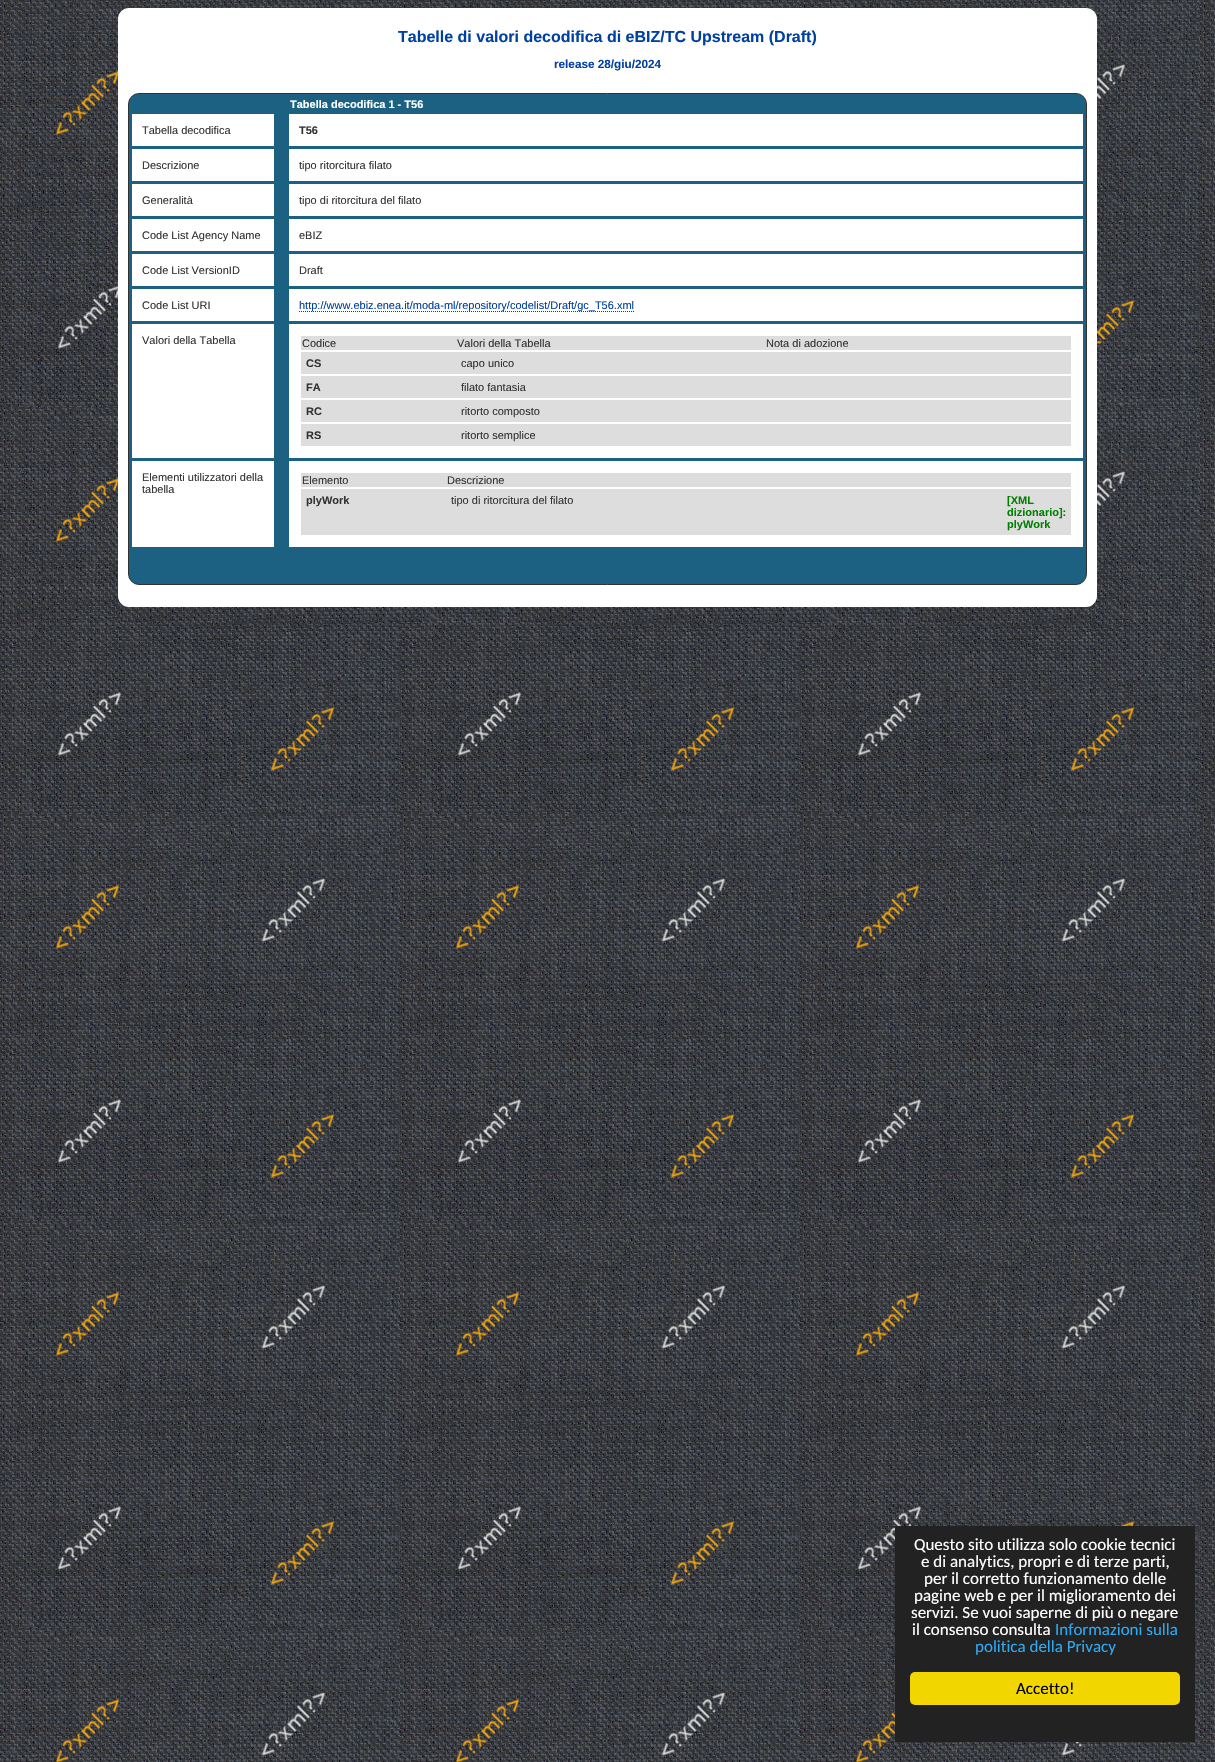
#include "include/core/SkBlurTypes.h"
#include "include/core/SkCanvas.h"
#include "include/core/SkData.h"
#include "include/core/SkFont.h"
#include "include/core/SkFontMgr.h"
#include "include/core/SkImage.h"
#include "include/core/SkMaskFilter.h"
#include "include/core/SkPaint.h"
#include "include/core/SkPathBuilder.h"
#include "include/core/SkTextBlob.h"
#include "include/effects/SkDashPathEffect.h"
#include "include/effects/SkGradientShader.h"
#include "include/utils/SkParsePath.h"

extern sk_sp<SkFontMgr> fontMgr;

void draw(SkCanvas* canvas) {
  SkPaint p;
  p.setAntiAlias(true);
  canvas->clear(SK_ColorWHITE);
  canvas->drawImageRect(SkImages::DeferredFromEncodedData(SkData::MakeFromFileName("images/1.png")), SkRect::MakeLTRB(0, 0, 1215, 1762), SkSamplingOptions());
  canvas->drawImageRect(SkImages::DeferredFromEncodedData(SkData::MakeFromFileName("images/2.png")), SkRect::MakeLTRB(118, 8, 1097, 623), SkSamplingOptions());
  p.setColor(SK_ColorWHITE);
  canvas->drawRoundRect(SkRect::MakeLTRB(118, 8, 1097, 607), 11, 11, p);
  p.setColor(SkColorSetRGB(28, 96, 130));
  canvas->drawRoundRect(SkRect::MakeLTRB(128.5f, 93.5f, 1086.5f, 584.5f), 10.5f, 10.5f, p);
  p.setStyle(SkPaint::kStroke_Style);
  p.setStrokeWidth(1);
  p.setColor(SkColorSetRGB(51, 51, 51));
  canvas->drawRoundRect(SkRect::MakeLTRB(128.5f, 93.5f, 1086.5f, 584.5f), 10.5f, 10.5f, p);
  p.setStyle(SkPaint::kFill_Style);
  p.setColor(SK_ColorWHITE);
  canvas->drawRect(SkRect::MakeLTRB(132, 114, 274, 146), p);
  canvas->drawRect(SkRect::MakeLTRB(289, 114, 1083, 146), p);
  canvas->drawRect(SkRect::MakeLTRB(132, 149, 274, 181), p);
  canvas->drawRect(SkRect::MakeLTRB(289, 149, 1083, 181), p);
  canvas->drawRect(SkRect::MakeLTRB(132, 184, 274, 216), p);
  canvas->drawRect(SkRect::MakeLTRB(289, 184, 1083, 216), p);
  canvas->drawRect(SkRect::MakeLTRB(132, 219, 274, 251), p);
  canvas->drawRect(SkRect::MakeLTRB(289, 219, 1083, 251), p);
  canvas->drawRect(SkRect::MakeLTRB(132, 254, 274, 286), p);
  canvas->drawRect(SkRect::MakeLTRB(289, 254, 1083, 286), p);
  canvas->drawRect(SkRect::MakeLTRB(132, 289, 274, 321), p);
  canvas->drawRect(SkRect::MakeLTRB(289, 289, 1083, 321), p);
  p.setStyle(SkPaint::kStroke_Style);
  p.setColor(SkColorSetRGB(0, 64, 160));
  p.setPathEffect(SkDashPathEffect::Make({{1, 1}}, 0));
  canvas->drawPath(SkPathBuilder().moveTo(299, 311.5f).lineTo(634, 311.5f).detach(), p);
  p.setPathEffect(nullptr);
  p.setStyle(SkPaint::kFill_Style);
  p.setColor(SK_ColorWHITE);
  canvas->drawRect(SkRect::MakeLTRB(132, 324, 274, 458), p);
  canvas->drawRect(SkRect::MakeLTRB(289, 324, 1083, 458), p);
  p.setColor(SkColorSetRGB(221, 221, 221));
  canvas->drawRect(SkRect::MakeLTRB(301, 336, 1071, 350), p);
  canvas->drawRect(SkRect::MakeLTRB(301, 352, 1071, 374), p);
  canvas->drawRect(SkRect::MakeLTRB(301, 376, 1071, 398), p);
  canvas->drawRect(SkRect::MakeLTRB(301, 400, 1071, 422), p);
  canvas->drawRect(SkRect::MakeLTRB(301, 424, 1071, 446), p);
  p.setColor(SK_ColorWHITE);
  canvas->drawRect(SkRect::MakeLTRB(132, 461, 274, 547), p);
  canvas->drawRect(SkRect::MakeLTRB(289, 461, 1083, 547), p);
  p.setColor(SkColorSetRGB(221, 221, 221));
  canvas->drawRect(SkRect::MakeLTRB(301, 473, 1071, 487), p);
  canvas->drawRect(SkRect::MakeLTRB(301, 489, 1071, 535), p);
  p.setColor(SkColorSetRGB(34, 34, 34));
  canvas->drawRect(SkRect::MakeLTRB(895, 1526, 1195, 1742), p);
  p.setColor(SkColorSetRGB(241, 214, 0));
  canvas->drawRoundRect(SkRect::MakeLTRB(910, 1672, 1180, 1705), 5, 5, p);
  SkFont font1(fontMgr->matchFamilyStyle("Liberation Sans", SkFontStyle::Bold()), 16);
  font1.setSubpixel(true);
  p.setColor(SkColorSetRGB(0, 64, 160));
  canvas->drawString("Tabelle di valori decodifica di eBIZ/TC Upstream (Draft)", 398, 42, font1, p);
  SkFont font2(fontMgr->matchFamilyStyle("Liberation Sans", SkFontStyle::Bold()), 11.75f);
  font2.setSubpixel(true);
  canvas->drawString("release 28/giu/2024", 554, 68, font2, p);
  SkFont font3(fontMgr->matchFamilyStyle("Liberation Sans", SkFontStyle::Bold()), 11);
  font3.setSubpixel(true);
  p.setColor(SK_ColorWHITE);
  canvas->drawString("Tabella decodifica 1 - T56", 290, 108, font3, p);
  SkFont font4(fontMgr->matchFamilyStyle("Liberation Sans", SkFontStyle::Normal()), 11);
  font4.setSubpixel(true);
  p.setColor(SkColorSetRGB(51, 51, 51));
  canvas->drawString("Tabella decodifica", 142, 134, font4, p);
  canvas->drawString("T56", 299, 134, font3, p);
  canvas->drawString("Descrizione", 142, 169, font4, p);
  canvas->drawString("tipo ritorcitura filato", 299, 169, font4, p);
  canvas->drawString("Generalità", 142, 204, font4, p);
  canvas->drawString("tipo di ritorcitura del filato", 299, 204, font4, p);
  canvas->drawString("Code List Agency Name", 142, 239, font4, p);
  canvas->drawString("eBIZ", 299, 239, font4, p);
  canvas->drawString("Code List VersionID", 142, 274, font4, p);
  canvas->drawString("Draft", 299, 274, font4, p);
  canvas->drawString("Code List URI", 142, 309, font4, p);
  p.setColor(SkColorSetRGB(0, 64, 160));
  canvas->drawString("http://www.ebiz.enea.it/moda-ml/repository/codelist/Draft/gc_T56.xml", 299, 309, font4, p);
  p.setColor(SkColorSetRGB(51, 51, 51));
  canvas->drawString("Valori della Tabella", 142, 344, font4, p);
  canvas->drawString("Codice", 302, 347, font4, p);
  canvas->drawString("Valori della Tabella", 457, 347, font4, p);
  canvas->drawString("Nota di adozione", 766, 347, font4, p);
  canvas->drawString("CS", 306, 367, font3, p);
  canvas->drawString("capo unico", 461, 367, font4, p);
  canvas->drawString("FA", 306, 391, font3, p);
  canvas->drawString("filato fantasia", 461, 391, font4, p);
  canvas->drawString("RC", 306, 415, font3, p);
  canvas->drawString("ritorto composto", 461, 415, font4, p);
  canvas->drawString("RS", 306, 439, font3, p);
  canvas->drawString("ritorto semplice", 461, 439, font4, p);
  canvas->drawString("Elementi utilizzatori della", 142, 481, font4, p);
  canvas->drawString("tabella", 142, 493, font4, p);
  canvas->drawString("Elemento", 302, 484, font4, p);
  canvas->drawString("Descrizione", 447, 484, font4, p);
  canvas->drawString("plyWork", 306, 504, font3, p);
  canvas->drawString("tipo di ritorcitura del filato", 451, 504, font4, p);
  p.setColor(SkColorSetRGB(0, 128, 0));
  canvas->drawString("[XML", 1007, 504, font3, p);
  canvas->drawString("dizionario]:", 1007, 516, font3, p);
  canvas->drawString("plyWork", 1007, 528, font3, p);
  SkFont font5(fontMgr->matchFamilyStyle("Carlito", SkFontStyle::Normal()), 17);
  font5.setSubpixel(true);
  p.setColor(SK_ColorWHITE);
  canvas->drawString("Questo sito utilizza solo cookie tecnici", 914, 1550, font5, p);
  canvas->drawString("e di analytics, propri e di terze parti,", 921, 1567, font5, p);
  canvas->drawString("per il corretto funzionamento delle", 924, 1584, font5, p);
  canvas->drawString("pagine web e per il miglioramento dei", 914, 1601, font5, p);
  canvas->drawString("servizi. Se vuoi saperne di più o negare", 911, 1618, font5, p);
  canvas->drawString("il consenso consulta", 912, 1635, font5, p);
  p.setColor(SkColorSetRGB(49, 168, 240));
  canvas->drawString("Informazioni sulla", 1055, 1635, font5, p);
  canvas->drawString("politica della Privacy", 975, 1652, font5, p);
  p.setColor(SK_ColorBLACK);
  canvas->drawString("Accetto!", 1016, 1694, font5, p);
}
